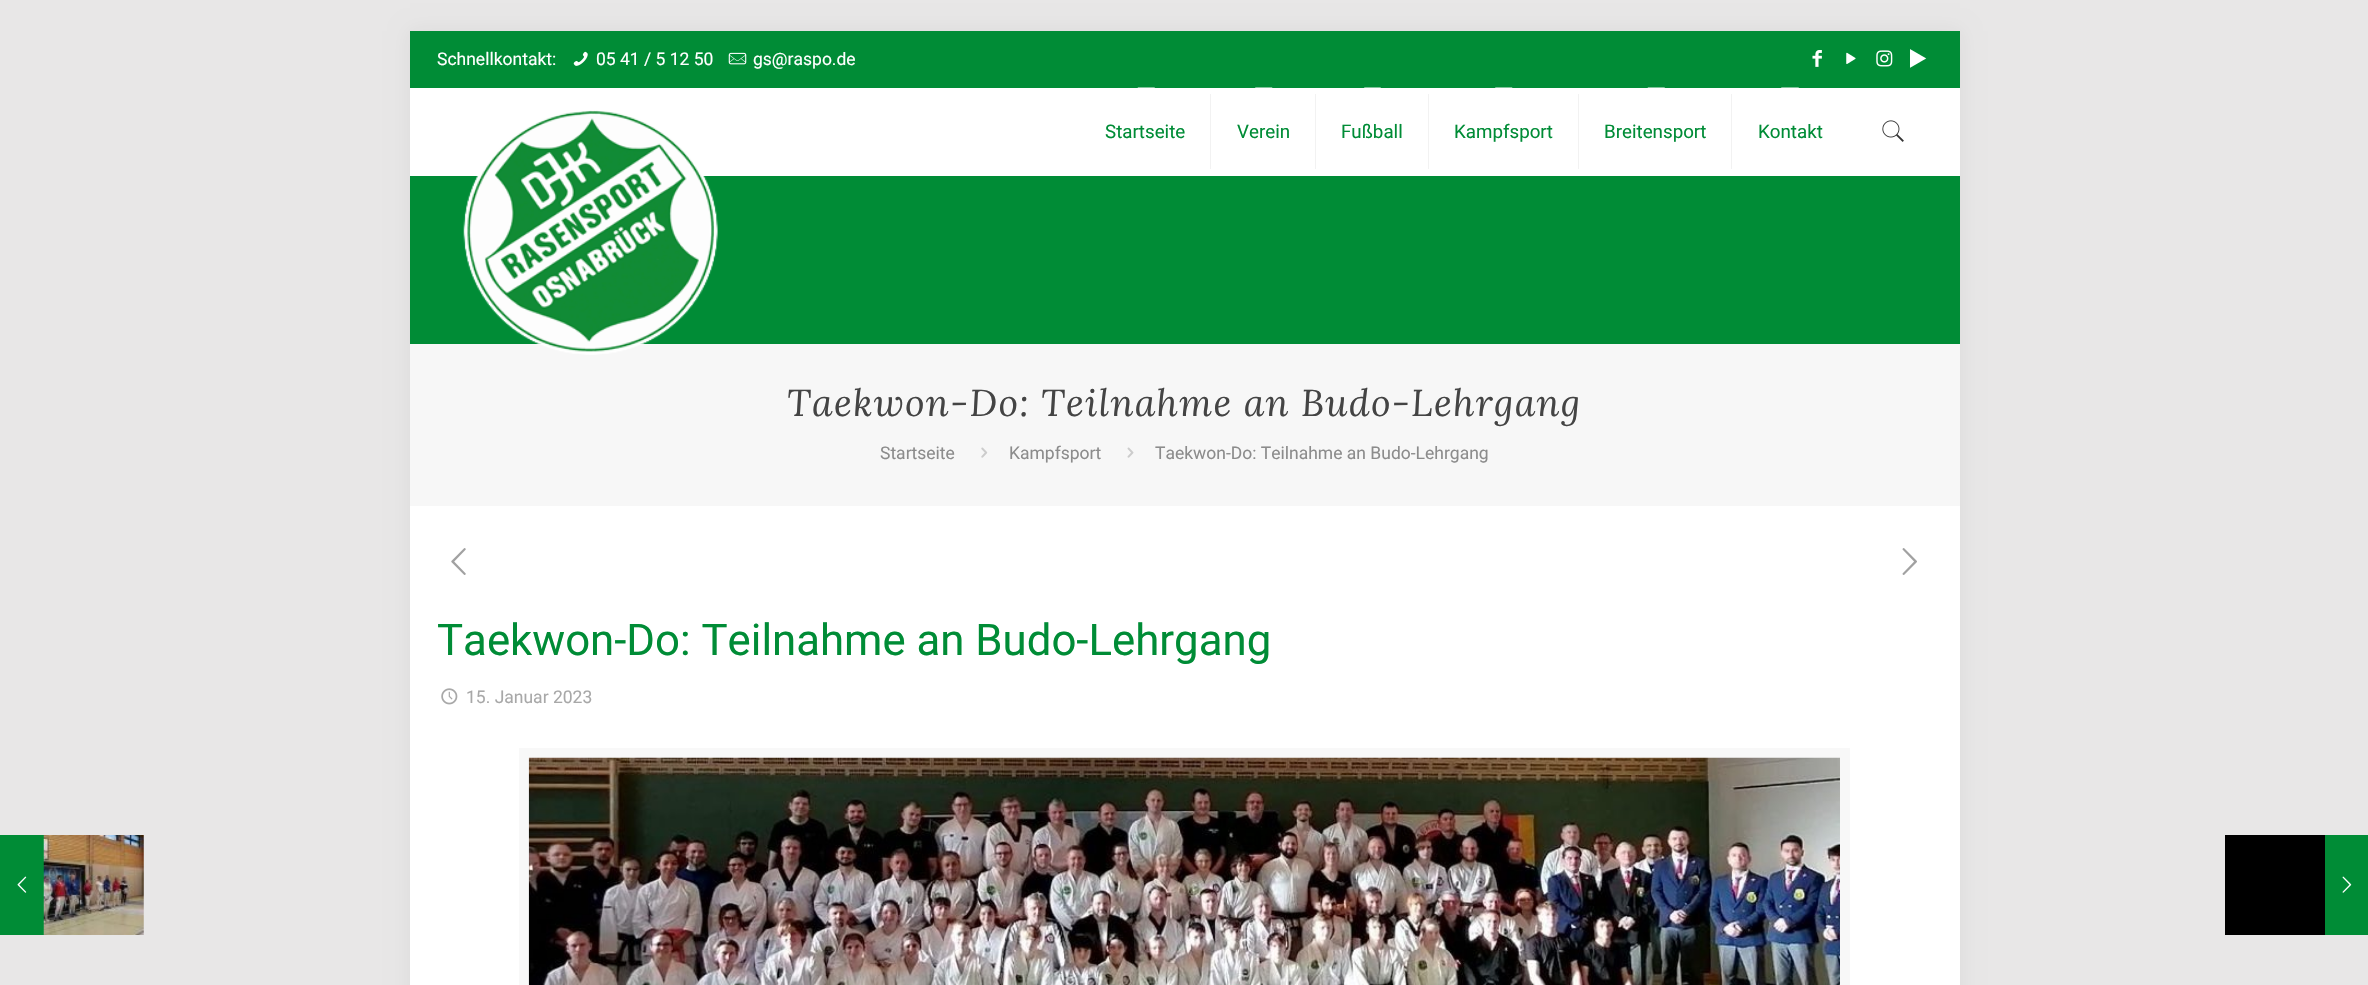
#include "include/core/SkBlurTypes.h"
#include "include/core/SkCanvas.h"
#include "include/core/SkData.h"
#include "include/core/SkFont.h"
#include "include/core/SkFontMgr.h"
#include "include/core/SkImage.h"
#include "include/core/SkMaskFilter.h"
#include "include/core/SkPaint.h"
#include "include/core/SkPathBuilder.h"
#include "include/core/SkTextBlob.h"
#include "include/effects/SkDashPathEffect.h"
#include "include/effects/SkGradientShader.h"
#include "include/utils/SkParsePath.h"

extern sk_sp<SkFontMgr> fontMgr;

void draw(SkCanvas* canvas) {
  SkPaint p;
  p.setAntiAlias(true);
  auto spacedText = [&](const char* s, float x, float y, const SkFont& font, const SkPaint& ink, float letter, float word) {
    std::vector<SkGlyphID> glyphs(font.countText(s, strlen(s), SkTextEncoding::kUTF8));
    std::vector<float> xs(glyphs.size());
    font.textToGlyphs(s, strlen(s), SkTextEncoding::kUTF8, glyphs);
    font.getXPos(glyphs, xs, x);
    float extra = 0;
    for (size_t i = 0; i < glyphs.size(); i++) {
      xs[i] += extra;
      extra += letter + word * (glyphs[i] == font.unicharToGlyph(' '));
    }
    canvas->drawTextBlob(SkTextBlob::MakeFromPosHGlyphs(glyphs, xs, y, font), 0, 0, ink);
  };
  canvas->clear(SkColorSetRGB(232, 231, 231));
  p.setColor(SkColorSetARGB(15, 0, 0, 0));
  p.setMaskFilter(SkMaskFilter::MakeBlur(kNormal_SkBlurStyle, 9.5f));
  canvas->drawRect(SkRect::MakeLTRB(410, 31, 1960, 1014), p);
  p.setMaskFilter(nullptr);
  p.setColor(SK_ColorWHITE);
  canvas->drawRect(SkRect::MakeLTRB(410, 506, 1960, 985), p);
  p.setColor(SkColorSetRGB(0, 140, 54));
  canvas->drawRect(SkRect::MakeLTRB(410, 31, 1960, 344), p);
  canvas->drawImageRect(SkImages::DeferredFromEncodedData(SkData::MakeFromFileName("images/1.png")), SkRect::MakeLTRB(573, 51, 588, 66), SkSamplingOptions());
  canvas->drawImageRect(SkImages::DeferredFromEncodedData(SkData::MakeFromFileName("images/2.png")), SkRect::MakeLTRB(728, 52, 747, 65), SkSamplingOptions());
  canvas->drawImageRect(SkImages::DeferredFromEncodedData(SkData::MakeFromFileName("images/3.png")), SkRect::MakeLTRB(1812, 50, 1822, 67), SkSamplingOptions());
  canvas->drawImageRect(SkImages::DeferredFromEncodedData(SkData::MakeFromFileName("images/4.png")), SkRect::MakeLTRB(1846, 52, 1856, 64), SkSamplingOptions());
  canvas->drawImageRect(SkImages::DeferredFromEncodedData(SkData::MakeFromFileName("images/5.png")), SkRect::MakeLTRB(1876, 50, 1893, 67), SkSamplingOptions());
  canvas->drawImageRect(SkImages::DeferredFromEncodedData(SkData::MakeFromFileName("images/6.png")), SkRect::MakeLTRB(1910, 49, 1927, 68), SkSamplingOptions());
  p.setColor(SK_ColorWHITE);
  canvas->drawRect(SkRect::MakeLTRB(410, 88, 1960, 176), p);
  p.setColor(SkColorSetRGB(247, 247, 247));
  canvas->drawRect(SkRect::MakeLTRB(410, 344, 1960, 506), p);
  canvas->drawImageRect(SkImages::DeferredFromEncodedData(SkData::MakeFromFileName("images/7.png")), SkRect::MakeLTRB(463, 110, 718, 355), SkSamplingOptions());
  p.setColor(SK_ColorWHITE);
  canvas->drawPath(SkPathBuilder().moveTo(1137.5f, 87.5f).lineTo(1155, 87.5f).lineTo(1146, 96).close().detach(), p);
  p.setColor(SkColorSetRGB(242, 242, 242));
  canvas->drawRect(SkRect::MakeLTRB(1210, 94, 1211, 169), p);
  p.setColor(SK_ColorWHITE);
  canvas->drawPath(SkPathBuilder().moveTo(1255, 87.5f).lineTo(1272.5f, 87.5f).lineTo(1264, 96).close().detach(), p);
  p.setColor(SkColorSetRGB(242, 242, 242));
  canvas->drawRect(SkRect::MakeLTRB(1315, 94, 1316, 169), p);
  p.setColor(SK_ColorWHITE);
  canvas->drawPath(SkPathBuilder().moveTo(1364, 87.5f).lineTo(1381, 87.5f).lineTo(1372.5f, 96).close().detach(), p);
  p.setColor(SkColorSetRGB(242, 242, 242));
  canvas->drawRect(SkRect::MakeLTRB(1428, 94, 1429, 169), p);
  p.setColor(SK_ColorWHITE);
  canvas->drawPath(SkPathBuilder().moveTo(1495, 87.5f).lineTo(1512.5f, 87.5f).lineTo(1504, 96).close().detach(), p);
  p.setColor(SkColorSetRGB(242, 242, 242));
  canvas->drawRect(SkRect::MakeLTRB(1578, 94, 1579, 169), p);
  p.setColor(SK_ColorWHITE);
  canvas->drawPath(SkPathBuilder().moveTo(1647.5f, 87.5f).lineTo(1665, 87.5f).lineTo(1656, 96).close().detach(), p);
  p.setColor(SkColorSetRGB(242, 242, 242));
  canvas->drawRect(SkRect::MakeLTRB(1731, 94, 1732, 169), p);
  p.setColor(SK_ColorWHITE);
  canvas->drawPath(SkPathBuilder().moveTo(1781, 87.5f).lineTo(1799, 87.5f).lineTo(1790, 96).close().detach(), p);
  canvas->drawImageRect(SkImages::DeferredFromEncodedData(SkData::MakeFromFileName("images/8.png")), SkRect::MakeLTRB(1882, 120, 1904, 142), SkSamplingOptions());
  canvas->drawImageRect(SkImages::DeferredFromEncodedData(SkData::MakeFromFileName("images/9.png")), SkRect::MakeLTRB(981, 447, 988, 458), SkSamplingOptions());
  canvas->drawImageRect(SkImages::DeferredFromEncodedData(SkData::MakeFromFileName("images/10.png")), SkRect::MakeLTRB(1127, 447, 1134, 458), SkSamplingOptions());
  canvas->drawImageRect(SkImages::DeferredFromEncodedData(SkData::MakeFromFileName("images/11.png")), SkRect::MakeLTRB(451, 548, 466, 575), SkSamplingOptions());
  canvas->drawImageRect(SkImages::DeferredFromEncodedData(SkData::MakeFromFileName("images/12.png")), SkRect::MakeLTRB(1902, 548, 1917, 575), SkSamplingOptions());
  canvas->drawImageRect(SkImages::DeferredFromEncodedData(SkData::MakeFromFileName("images/13.png")), SkRect::MakeLTRB(441, 688, 458, 705), SkSamplingOptions());
  p.setStyle(SkPaint::kStroke_Style);
  p.setStrokeWidth(10);
  p.setColor(SkColorSetRGB(248, 248, 248));
  canvas->drawRect(SkRect::MakeLTRB(524, 753, 1845, 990), p);
  canvas->drawImageRect(SkImages::DeferredFromEncodedData(SkData::MakeFromFileName("images/14.png")), SkRect::MakeLTRB(528, 757, 1840, 985), SkSamplingOptions());
  p.setStyle(SkPaint::kFill_Style);
  p.setColor(SkColorSetRGB(0, 140, 54));
  canvas->drawRect(SkRect::MakeLTRB(0, 835, 44, 935), p);
  canvas->drawImageRect(SkImages::DeferredFromEncodedData(SkData::MakeFromFileName("images/15.png")), SkRect::MakeLTRB(17, 876, 27, 893), SkSamplingOptions());
  canvas->drawImageRect(SkImages::DeferredFromEncodedData(SkData::MakeFromFileName("images/16.png")), SkRect::MakeLTRB(43, 835, 144, 935), SkSamplingOptions());
  p.setColor(SK_ColorBLACK);
  canvas->drawRect(SkRect::MakeLTRB(2225, 835, 2325, 935), p);
  p.setColor(SkColorSetRGB(0, 140, 54));
  canvas->drawRect(SkRect::MakeLTRB(2325, 835, 2368, 935), p);
  canvas->drawImageRect(SkImages::DeferredFromEncodedData(SkData::MakeFromFileName("images/17.png")), SkRect::MakeLTRB(2342, 876, 2352, 893), SkSamplingOptions());
  SkFont font1(fontMgr->matchFamilyStyle("Roboto", SkFontStyle::Normal()), 17.5f);
  font1.setSubpixel(true);
  p.setColor(SK_ColorWHITE);
  canvas->drawString("Schnellkontakt:", 437, 65, font1, p);
  canvas->drawString("05 41 / 5 12 50", 596, 65, font1, p);
  canvas->drawString("gs@raspo.de", 753, 65, font1, p);
  SkFont font2(fontMgr->matchFamilyStyle("Roboto", SkFontStyle::Normal()), 18.75f);
  font2.setSubpixel(true);
  p.setColor(SkColorSetRGB(0, 140, 54));
  canvas->drawString("Startseite", 1105, 138, font2, p);
  canvas->drawString("Verein", 1237, 138, font2, p);
  canvas->drawString("Fußball", 1341, 138, font2, p);
  canvas->drawString("Kampfsport", 1454, 138, font2, p);
  canvas->drawString("Breitensport", 1604, 138, font2, p);
  canvas->drawString("Kontakt", 1758, 138, font2, p);
  SkFont font3(fontMgr->matchFamilyStyle("Lora", SkFontStyle::Italic()), 37.5f);
  font3.setSubpixel(true);
  p.setColor(SkColorSetRGB(68, 68, 68));
  spacedText("Taekwon-Do: Teilnahme an Budo-Lehrgang", 787, 416, font3, p, 1.25f, 0);
  p.setColor(SkColorSetRGB(140, 140, 140));
  canvas->drawString("Startseite", 880, 459, font1, p);
  canvas->drawString("Kampfsport", 1009, 459, font1, p);
  canvas->drawString("Taekwon-Do: Teilnahme an Budo-Lehrgang", 1155, 459, font1, p);
  SkFont font4(fontMgr->matchFamilyStyle("Roboto", SkFontStyle::Normal()), 43.75f);
  font4.setSubpixel(true);
  p.setColor(SkColorSetRGB(0, 140, 54));
  canvas->drawString("Taekwon-Do: Teilnahme an Budo-Lehrgang", 437, 655, font4, p);
  p.setColor(SkColorSetRGB(168, 168, 168));
  canvas->drawString("15. Januar 2023", 466, 703, font1, p);
}
